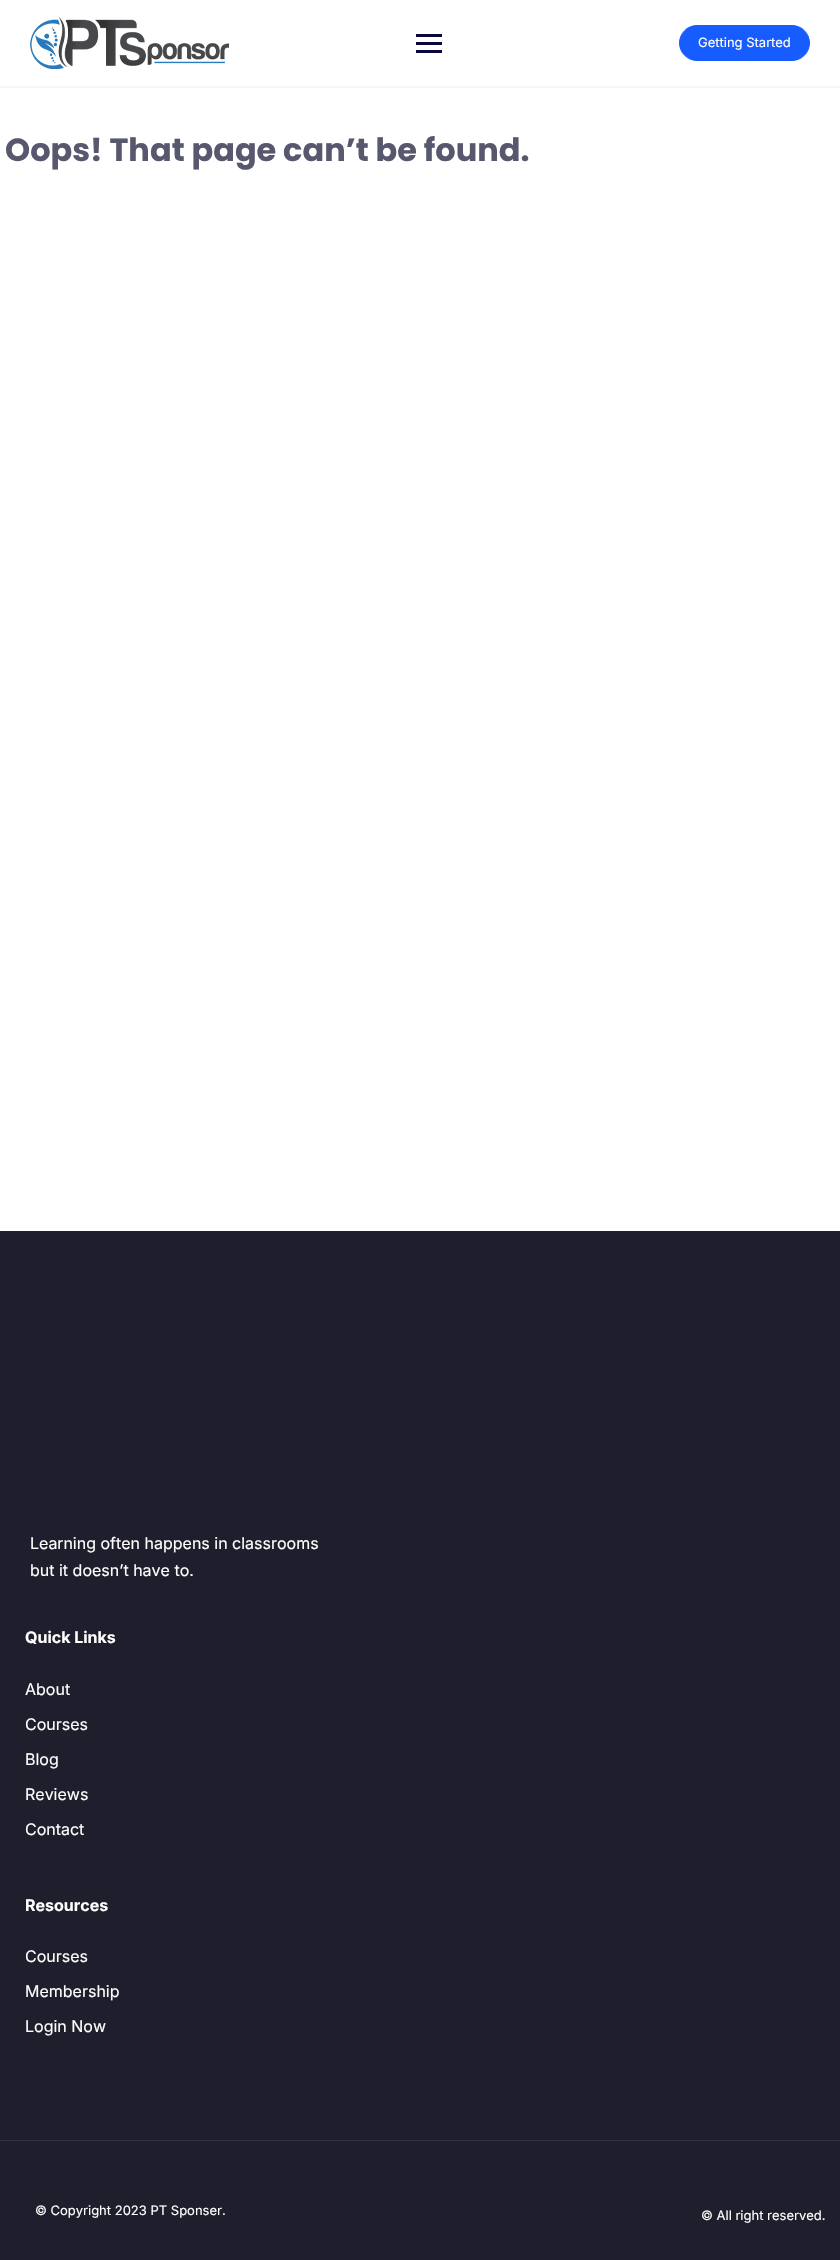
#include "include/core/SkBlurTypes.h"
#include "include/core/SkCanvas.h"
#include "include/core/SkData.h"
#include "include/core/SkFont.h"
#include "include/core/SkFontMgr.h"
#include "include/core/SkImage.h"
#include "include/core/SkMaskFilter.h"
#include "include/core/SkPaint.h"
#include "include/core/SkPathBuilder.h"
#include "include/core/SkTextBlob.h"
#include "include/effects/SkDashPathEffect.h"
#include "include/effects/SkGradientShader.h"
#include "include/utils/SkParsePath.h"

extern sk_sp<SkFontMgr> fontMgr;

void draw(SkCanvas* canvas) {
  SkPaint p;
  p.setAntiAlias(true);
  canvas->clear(SK_ColorWHITE);
  p.setColor(SkColorSetRGB(248, 248, 248));
  canvas->drawRect(SkRect::MakeLTRB(0, 86, 840, 88), p);
  canvas->drawImageRect(SkImages::DeferredFromEncodedData(SkData::MakeFromFileName("images/1.png")), SkRect::MakeLTRB(30, 17, 229, 69), SkSamplingOptions());
  p.setColor(SkColorSetRGB(10, 8, 59));
  canvas->drawRect(SkRect::MakeLTRB(416, 42, 442, 45), p);
  canvas->drawRect(SkRect::MakeLTRB(416, 34, 442, 37), p);
  canvas->drawRect(SkRect::MakeLTRB(416, 50, 442, 53), p);
  p.setColor(SkColorSetRGB(23, 92, 255));
  canvas->drawRoundRect(SkRect::MakeLTRB(679.5f, 25.5f, 809.5f, 60.5f), 17.5f, 17.5f, p);
  p.setStyle(SkPaint::kStroke_Style);
  p.setStrokeWidth(1);
  canvas->drawRoundRect(SkRect::MakeLTRB(679.5f, 25.5f, 809.5f, 60.5f), 17.5f, 17.5f, p);
  p.setStyle(SkPaint::kFill_Style);
  p.setColor(SkColorSetRGB(30, 30, 44));
  canvas->drawRect(SkRect::MakeLTRB(0, 1231, 840, 2260), p);
  p.setColor(SkColorSetRGB(48, 48, 61));
  canvas->drawRect(SkRect::MakeLTRB(0, 2140, 840, 2141), p);
  SkFont font1(fontMgr->matchFamilyStyle("Inter", SkFontStyle::Normal()), 13);
  font1.setSubpixel(true);
  p.setColor(SK_ColorWHITE);
  canvas->drawString("Getting Started", 698, 47, font1, p);
  SkFont font2(fontMgr->matchFamilyStyle("Poppins", SkFontStyle::Bold()), 32);
  font2.setSubpixel(true);
  p.setColor(SkColorSetRGB(87, 88, 110));
  canvas->drawString("Oops! That page can’t be found.", 5, 161, font2, p);
  SkFont font3(fontMgr->matchFamilyStyle("Inter", SkFontStyle::Normal()), 16);
  font3.setSubpixel(true);
  p.setColor(SK_ColorWHITE);
  canvas->drawString("Learning often happens in classrooms", 30, 1549, font3, p);
  canvas->drawString("but it doesn’t have to.", 30, 1576, font3, p);
  SkFont font4(fontMgr->matchFamilyStyle("Inter", SkFontStyle::Bold()), 16);
  font4.setSubpixel(true);
  canvas->drawString("Quick Links", 25, 1643, font4, p);
  canvas->drawString("About", 25, 1695, font3, p);
  canvas->drawString("Courses", 25, 1730, font3, p);
  canvas->drawString("Blog", 25, 1765, font3, p);
  canvas->drawString("Reviews", 25, 1800, font3, p);
  canvas->drawString("Contact", 25, 1835, font3, p);
  canvas->drawString("Resources", 25, 1911, font4, p);
  canvas->drawString("Courses", 25, 1962, font3, p);
  canvas->drawString("Membership", 25, 1997, font3, p);
  canvas->drawString("Login Now", 25, 2032, font3, p);
  canvas->drawString("© Copyright 2023 PT Sponser.", 35, 2215, font1, p);
  canvas->drawString("© All right reserved.", 701, 2220, font1, p);
}
